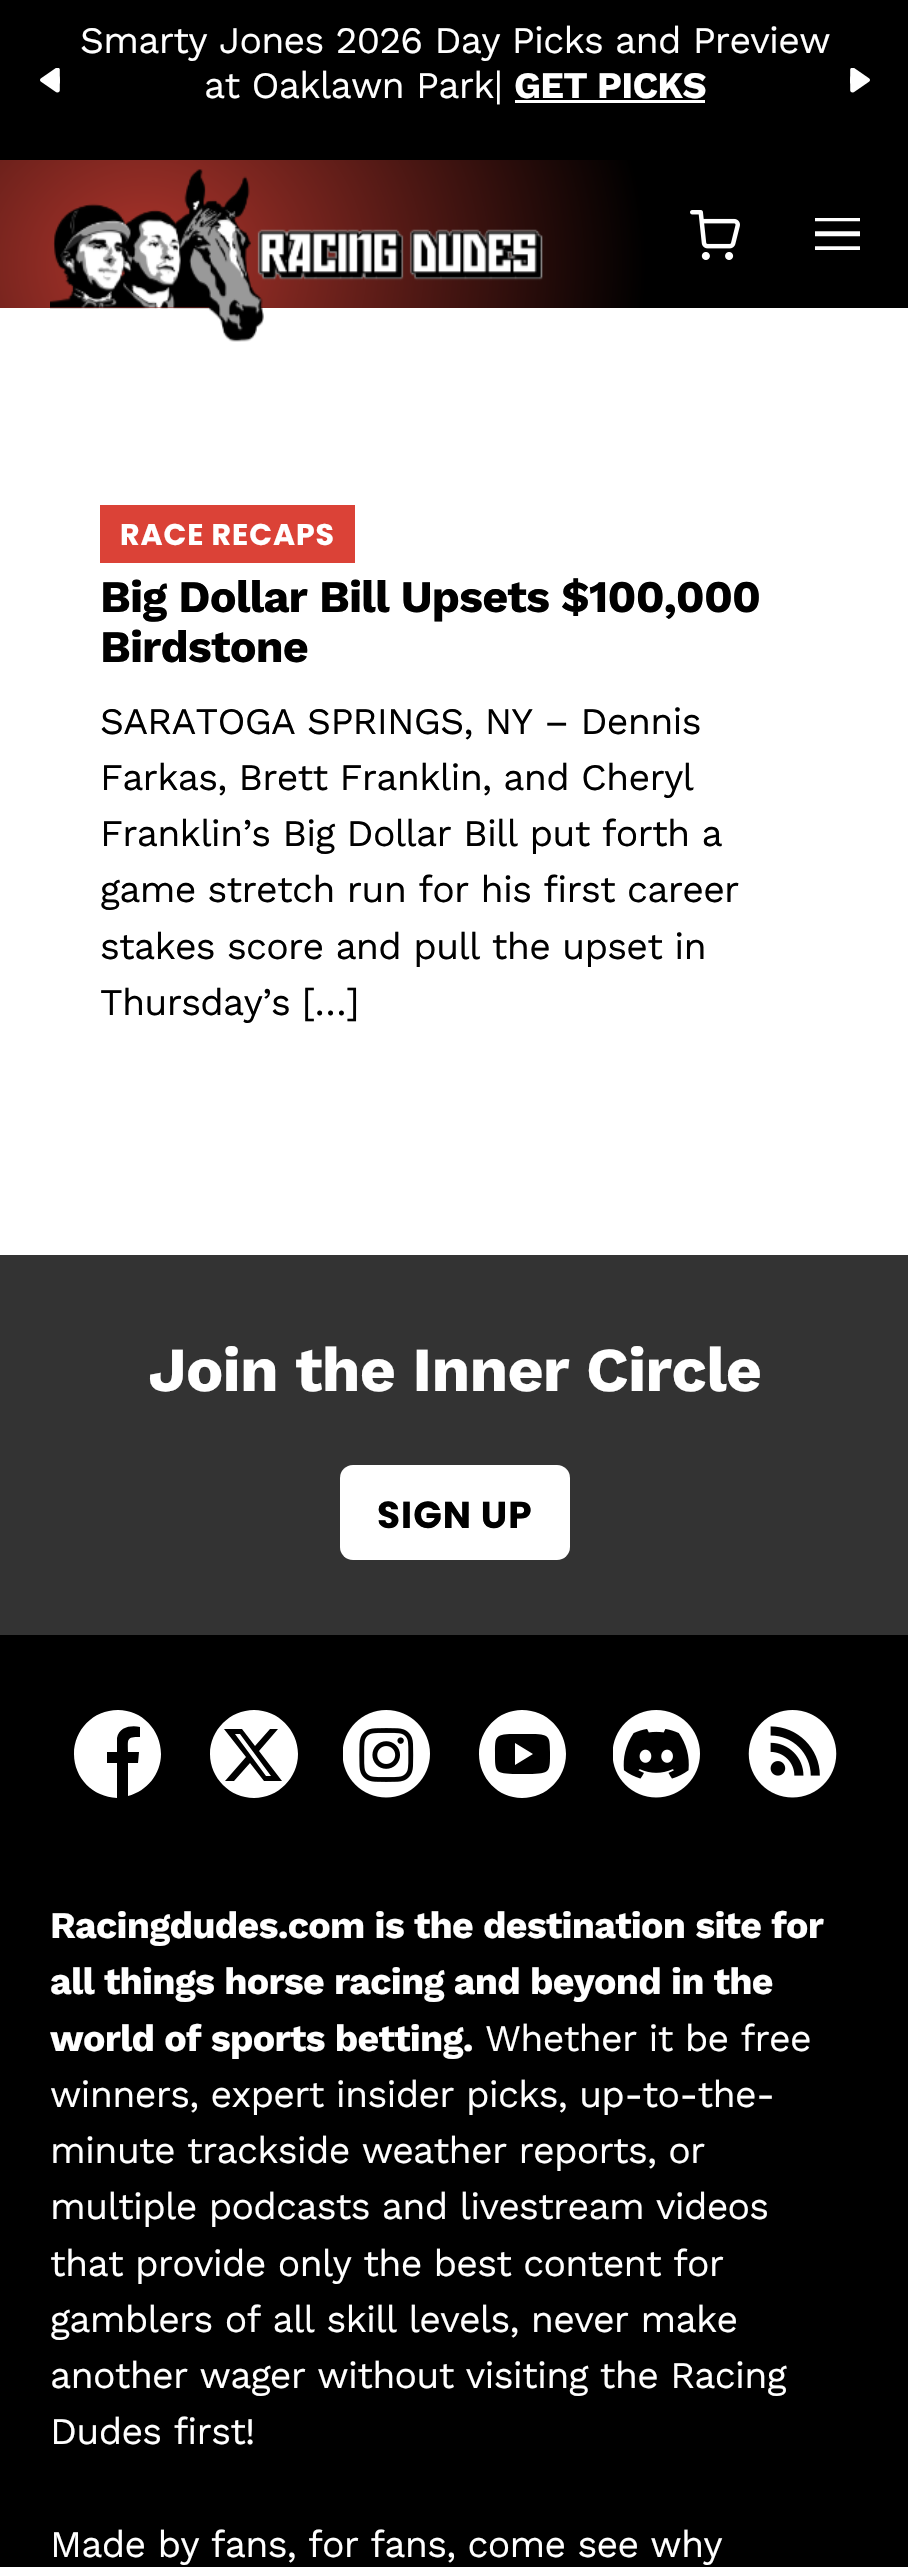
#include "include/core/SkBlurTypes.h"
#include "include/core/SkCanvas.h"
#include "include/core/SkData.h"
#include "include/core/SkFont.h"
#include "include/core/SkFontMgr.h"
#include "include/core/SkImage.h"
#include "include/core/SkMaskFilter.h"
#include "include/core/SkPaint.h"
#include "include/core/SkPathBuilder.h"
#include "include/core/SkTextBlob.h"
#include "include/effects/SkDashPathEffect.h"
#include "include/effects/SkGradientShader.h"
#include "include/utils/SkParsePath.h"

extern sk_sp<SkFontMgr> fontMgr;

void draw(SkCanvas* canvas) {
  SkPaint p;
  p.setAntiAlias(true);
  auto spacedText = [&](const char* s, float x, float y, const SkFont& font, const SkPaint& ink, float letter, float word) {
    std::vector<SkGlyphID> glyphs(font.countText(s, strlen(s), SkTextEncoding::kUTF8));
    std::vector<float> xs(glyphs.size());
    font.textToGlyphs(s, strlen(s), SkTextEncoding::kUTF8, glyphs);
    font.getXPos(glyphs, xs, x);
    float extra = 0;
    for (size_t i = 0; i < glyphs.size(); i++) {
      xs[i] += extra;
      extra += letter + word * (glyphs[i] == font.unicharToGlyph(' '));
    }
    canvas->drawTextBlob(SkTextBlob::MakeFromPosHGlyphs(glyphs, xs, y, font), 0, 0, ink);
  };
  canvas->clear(SK_ColorWHITE);
  p.setColor(SK_ColorBLACK);
  canvas->drawRect(SkRect::MakeLTRB(0, 0, 908, 160), p);
  canvas->drawImageRect(SkImages::DeferredFromEncodedData(SkData::MakeFromFileName("images/1.png")), SkRect::MakeLTRB(40, 68, 60, 93), SkSamplingOptions());
  p.setColor(SK_ColorWHITE);
  canvas->drawRect(SkRect::MakeLTRB(515, 100, 705, 103), p);
  canvas->drawImageRect(SkImages::DeferredFromEncodedData(SkData::MakeFromFileName("images/2.png")), SkRect::MakeLTRB(850, 68, 870, 93), SkSamplingOptions());
  {
    const SkColor colors[] = {SkColorSetRGB(175, 53, 44), SK_ColorBLACK};
    const float stops[] = {0, 1};
    SkMatrix m = SkMatrix::Translate(145, 265).preScale(501, 443);
    p.setShader(SkGradientShader::MakeRadial({0, 0}, 1, colors, stops, 2, SkTileMode::kClamp, 0, &m));
    p.setAlpha(255);
  }
  canvas->drawRect(SkRect::MakeLTRB(0, 160, 908, 308), p);
  canvas->drawImageRect(SkImages::DeferredFromEncodedData(SkData::MakeFromFileName("images/3.png")), SkRect::MakeLTRB(50, 169, 543, 342), SkSamplingOptions());
  canvas->drawImageRect(SkImages::DeferredFromEncodedData(SkData::MakeFromFileName("images/4.png")), SkRect::MakeLTRB(690, 210, 740, 260), SkSamplingOptions());
  canvas->drawImageRect(SkImages::DeferredFromEncodedData(SkData::MakeFromFileName("images/5.png")), SkRect::MakeLTRB(815, 218, 860, 250), SkSamplingOptions());
  p.setShader(nullptr);
  p.setColor(SkColorSetRGB(219, 66, 55));
  canvas->drawRect(SkRect::MakeLTRB(100, 505, 355, 563), p);
  p.setColor(SkColorSetRGB(51, 51, 51));
  canvas->drawRect(SkRect::MakeLTRB(0, 1255, 908, 1635), p);
  p.setColor(SK_ColorWHITE);
  canvas->drawRoundRect(SkRect::MakeLTRB(340, 1465, 570, 1560), 13, 13, p);
  p.setColor(SK_ColorBLACK);
  canvas->drawRect(SkRect::MakeLTRB(0, 1635, 908, 2567), p);
  p.setColor(SK_ColorWHITE);
  canvas->drawPath(SkPathBuilder().moveTo(117, 1798).lineTo(117, 1763).lineTo(107, 1763).lineTo(107, 1752).lineTo(117, 1752).lineTo(117, 1738).cubicTo(119, 1727, 131, 1725, 140, 1727).lineTo(140, 1737).cubicTo(126, 1737, 128, 1739, 128, 1752).lineTo(139, 1752).lineTo(138, 1763).lineTo(128, 1763).lineTo(128, 1796).cubicTo(147, 1791, 161, 1774, 161, 1754).cubicTo(161, 1730, 142, 1710, 118, 1710).cubicTo(93, 1710, 74, 1730, 74, 1754).cubicTo(74, 1778, 93, 1797, 117, 1798).close().detach(), p);
  canvas->drawPath(SkPathBuilder().moveTo(254, 1710).cubicTo(278, 1710, 298, 1730, 298, 1754).cubicTo(298, 1778, 278, 1798, 254, 1798).cubicTo(230, 1798, 210, 1778, 210, 1754).cubicTo(210, 1730, 230, 1710, 254, 1710).close().moveTo(242, 1729).lineTo(224, 1729).lineTo(246, 1757).lineTo(225, 1781).lineTo(234, 1781).lineTo(250, 1763).lineTo(264, 1781).lineTo(282, 1781).lineTo(259, 1751).lineTo(278, 1729).lineTo(270, 1729).lineTo(255, 1746).close().moveTo(240, 1734).lineTo(271, 1776).lineTo(266, 1776).lineTo(235, 1734).close().detach(), p);
  canvas->drawImageRect(SkImages::DeferredFromEncodedData(SkData::MakeFromFileName("images/6.png")), SkRect::MakeLTRB(343, 1710, 430, 1798), SkSamplingOptions());
  canvas->drawPath(SkPathBuilder().moveTo(522, 1798).cubicTo(547, 1798, 566, 1778, 566, 1754).cubicTo(566, 1730, 547, 1710, 522, 1710).cubicTo(498, 1710, 479, 1730, 479, 1754).cubicTo(479, 1778, 498, 1798, 522, 1798).close().moveTo(524, 1774).lineTo(521, 1774).cubicTo(496, 1774, 495, 1773, 495, 1756).lineTo(495, 1752).cubicTo(495, 1734, 496, 1734, 521, 1734).lineTo(524, 1734).cubicTo(549, 1734, 550, 1734, 550, 1752).lineTo(550, 1756).cubicTo(550, 1773, 549, 1774, 524, 1774).close().moveTo(515, 1765).lineTo(533, 1754).lineTo(515, 1743).close().detach(), p);
  canvas->drawImageRect(SkImages::DeferredFromEncodedData(SkData::MakeFromFileName("images/7.png")), SkRect::MakeLTRB(613, 1710, 700, 1798), SkSamplingOptions());
  canvas->drawImageRect(SkImages::DeferredFromEncodedData(SkData::MakeFromFileName("images/8.png")), SkRect::MakeLTRB(748, 1710, 837, 1798), SkSamplingOptions());
  SkFont font1(fontMgr->matchFamilyStyle("Work Sans", SkFontStyle::Normal()), 37.5f);
  font1.setSubpixel(true);
  spacedText("Smarty Jones 2026 Day Picks and Preview", 80, 53, font1, p, -0.75f, 0);
  spacedText("at Oaklawn Park|", 204, 98, font1, p, -0.75f, 0);
  SkFont font2(fontMgr->matchFamilyStyle("Work Sans", SkFontStyle::Bold()), 37.5f);
  font2.setSubpixel(true);
  spacedText("GET PICKS", 514, 98, font2, p, -0.75f, 0);
  SkFont font3(fontMgr->matchFamilyStyle("Poppins", SkFontStyle::Bold()), 30);
  font3.setSubpixel(true);
  spacedText("RACE RECAPS", 120, 545, font3, p, 0.9f, 0);
  SkFont font4(fontMgr->matchFamilyStyle("Work Sans", SkFontStyle::Bold()), 45);
  font4.setSubpixel(true);
  p.setColor(SK_ColorBLACK);
  spacedText("Big Dollar Bill Upsets $100,000", 100, 612, font4, p, -0.9f, 0);
  spacedText("Birdstone", 100, 662, font4, p, -0.9f, 0);
  spacedText("SARATOGA SPRINGS, NY – Dennis", 100, 734, font1, p, -0.75f, 0);
  spacedText("Farkas, Brett Franklin, and Cheryl", 100, 790, font1, p, -0.75f, 0);
  spacedText("Franklin’s Big Dollar Bill put forth a", 100, 846, font1, p, -0.75f, 0);
  spacedText("game stretch run for his first career", 100, 902, font1, p, -0.75f, 0);
  spacedText("stakes score and pull the upset in", 100, 959, font1, p, -0.75f, 0);
  spacedText("Thursday’s […]", 100, 1015, font1, p, -0.75f, 0);
  SkFont font5(fontMgr->matchFamilyStyle("Work Sans", SkFontStyle::Bold()), 62.5f);
  font5.setSubpixel(true);
  p.setColor(SK_ColorWHITE);
  spacedText("Join the Inner Circle", 148, 1391, font5, p, -0.75f, 0);
  SkFont font6(fontMgr->matchFamilyStyle("Poppins", SkFontStyle::Bold()), 37.5f);
  font6.setSubpixel(true);
  p.setColor(SK_ColorBLACK);
  spacedText("SIGN UP", 377, 1528, font6, p, 1, 0);
  p.setColor(SK_ColorWHITE);
  spacedText("Racingdudes.com is the destination site for", 50, 1938, font2, p, -0.75f, 0);
  spacedText("all things horse racing and beyond in the", 50, 1994, font2, p, -0.75f, 0);
  spacedText("world of sports betting.", 50, 2051, font2, p, -0.75f, 0);
  spacedText("Whether it be free", 485, 2051, font1, p, -0.75f, 0);
  spacedText("winners, expert insider picks, up-to-the-", 50, 2107, font1, p, -0.75f, 0);
  spacedText("minute trackside weather reports, or", 50, 2163, font1, p, -0.75f, 0);
  spacedText("multiple podcasts and livestream videos", 50, 2219, font1, p, -0.75f, 0);
  spacedText("that provide only the best content for", 50, 2276, font1, p, -0.75f, 0);
  spacedText("gamblers of all skill levels, never make", 50, 2332, font1, p, -0.75f, 0);
  spacedText("another wager without visiting the Racing", 50, 2388, font1, p, -0.75f, 0);
  spacedText("Dudes first!", 50, 2444, font1, p, -0.75f, 0);
  spacedText("Made by fans, for fans, come see why", 50, 2557, font1, p, -0.75f, 0);
}
